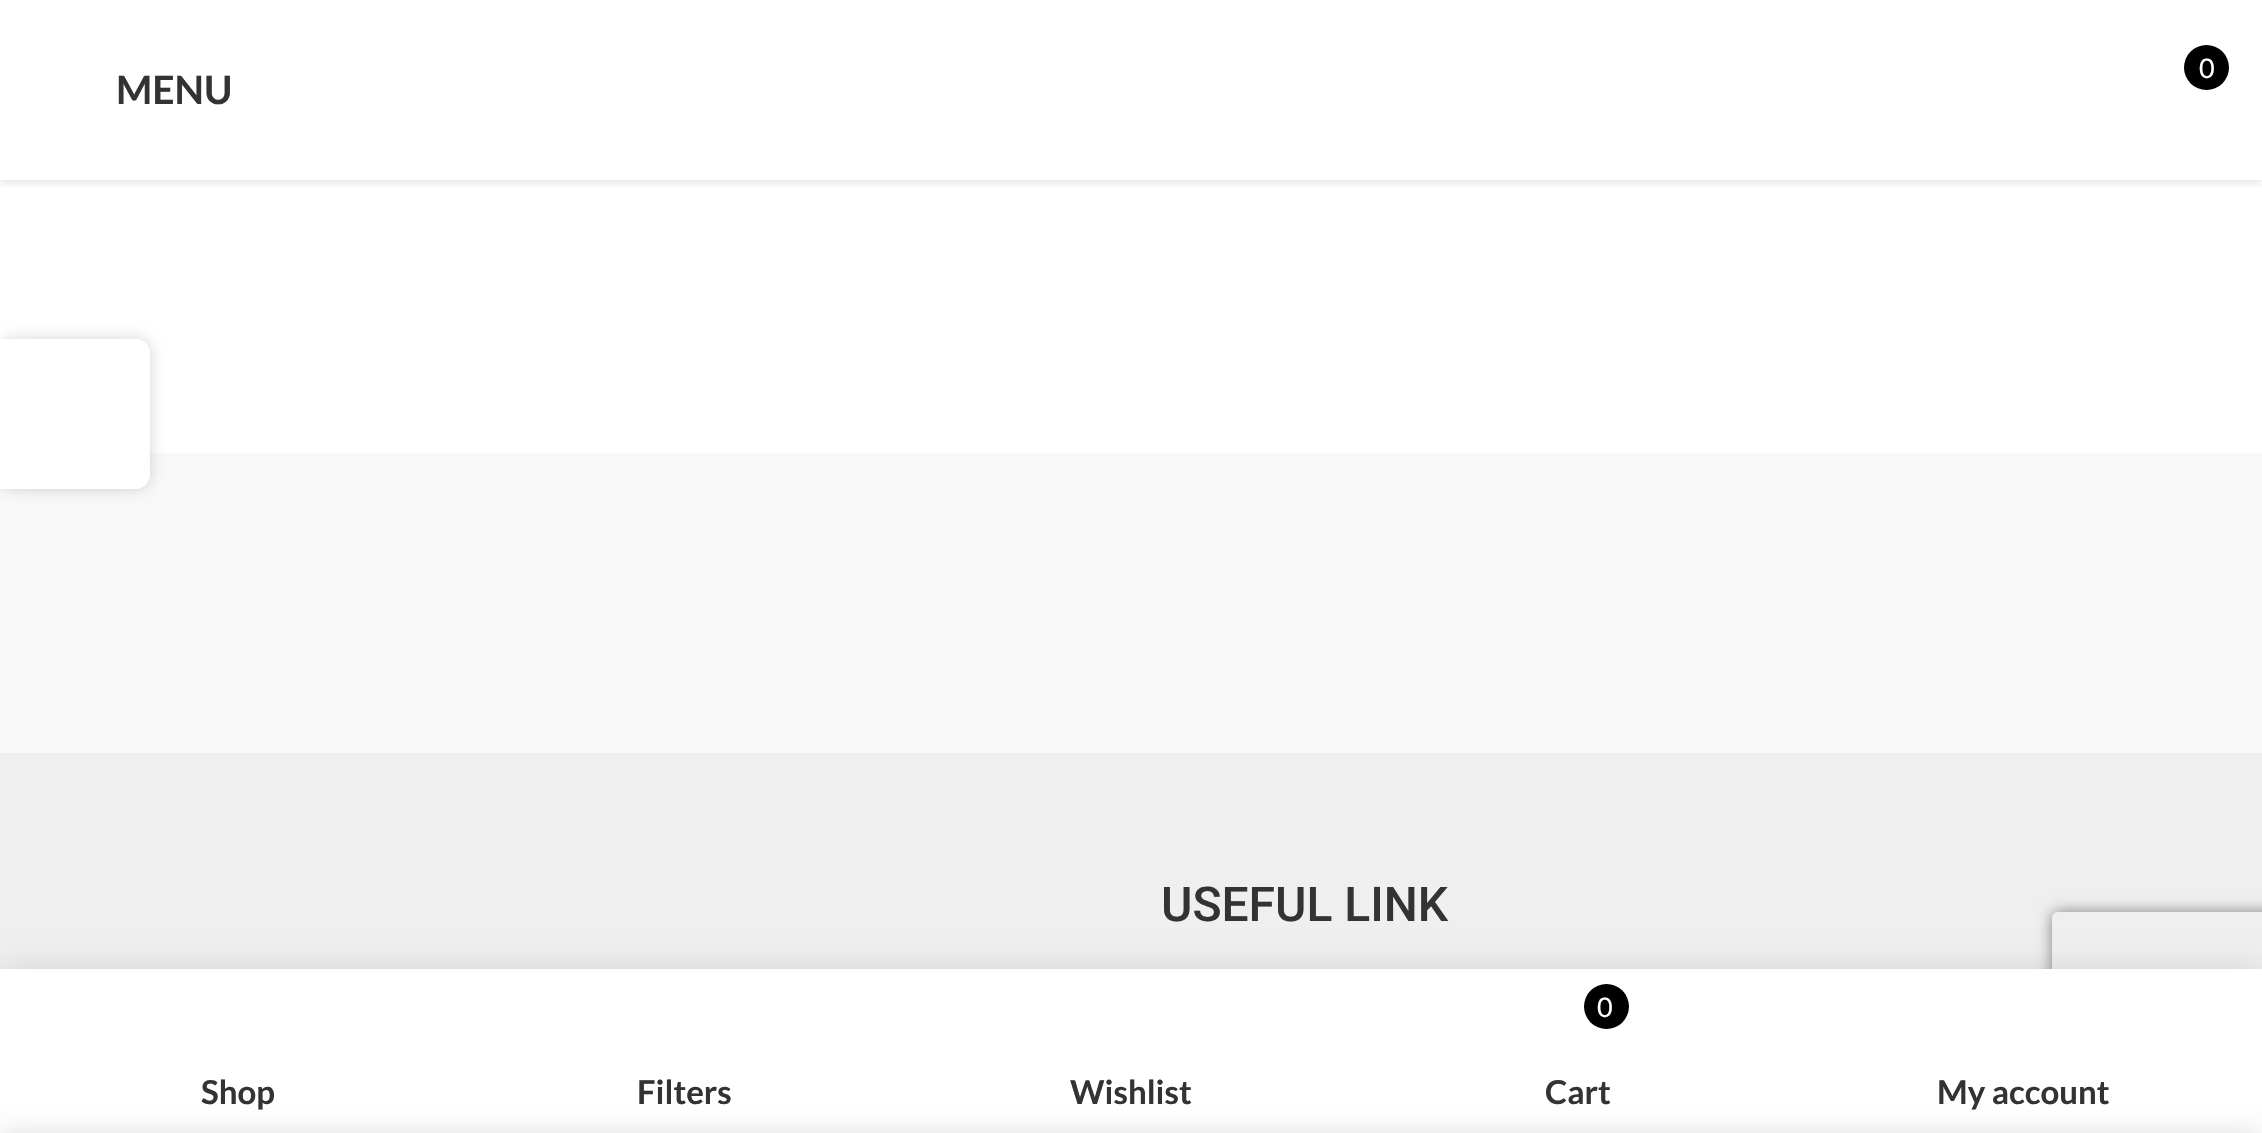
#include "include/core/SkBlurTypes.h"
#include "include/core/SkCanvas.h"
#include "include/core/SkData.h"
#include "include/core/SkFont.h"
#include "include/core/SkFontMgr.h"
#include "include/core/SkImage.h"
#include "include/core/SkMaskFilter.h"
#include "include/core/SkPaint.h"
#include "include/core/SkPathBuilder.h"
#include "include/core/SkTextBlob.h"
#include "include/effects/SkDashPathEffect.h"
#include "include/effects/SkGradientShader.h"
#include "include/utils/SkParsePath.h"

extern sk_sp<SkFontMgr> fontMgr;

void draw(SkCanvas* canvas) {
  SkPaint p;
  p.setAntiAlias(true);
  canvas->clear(SK_ColorWHITE);
  canvas->save();
  canvas->clipRect(SkRect::MakeLTRB(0, 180, 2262, 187));
  p.setColor(SkColorSetARGB(26, 0, 0, 0));
  p.setMaskFilter(SkMaskFilter::MakeBlur(kNormal_SkBlurStyle, 4.5f));
  canvas->drawRect(SkRect::MakeLTRB(0, 3, 2262, 183), p);
  p.setMaskFilter(nullptr);
  canvas->restore();
  p.setColor(SK_ColorBLACK);
  canvas->drawCircle(2206.5f, 67.5f, 22.5f, p);
  p.setColor(SkColorSetRGB(249, 249, 249));
  canvas->drawRect(SkRect::MakeLTRB(0, 453, 2262, 753), p);
  canvas->save();
  canvas->clipPath(SkPathBuilder(SkPathFillType::kEvenOdd).moveTo(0, 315).lineTo(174, 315).lineTo(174, 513).lineTo(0, 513).close().moveTo(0, 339).lineTo(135, 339).cubicTo(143.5f, 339, 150, 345.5f, 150, 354).lineTo(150, 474).cubicTo(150, 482.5f, 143.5f, 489, 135, 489).lineTo(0, 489).close().detach(), true);
  p.setColor(SkColorSetARGB(43, 0, 0, 0));
  p.setMaskFilter(SkMaskFilter::MakeBlur(kNormal_SkBlurStyle, 7.5f));
  canvas->drawRoundRect(SkRect::MakeLTRB(0, 339, 150, 489), 15, 15, p);
  p.setMaskFilter(nullptr);
  canvas->restore();
  p.setColor(SkColorSetARGB(230, 255, 255, 255));
  canvas->drawPath(SkPathBuilder().moveTo(0, 339).lineTo(135, 339).cubicTo(143.5f, 339, 150, 345.5f, 150, 354).lineTo(150, 474).cubicTo(150, 482.5f, 143.5f, 489, 135, 489).lineTo(0, 489).close().detach(), p);
  p.setColor(SkColorSetRGB(239, 239, 239));
  canvas->drawRect(SkRect::MakeLTRB(0, 753, 2262, 969), p);
  p.setColor(SkColorSetARGB(31, 0, 0, 0));
  p.setMaskFilter(SkMaskFilter::MakeBlur(kNormal_SkBlurStyle, 13.5f));
  canvas->drawRect(SkRect::MakeLTRB(0, 969, 2262, 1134), p);
  p.setMaskFilter(nullptr);
  canvas->save();
  canvas->clipPath(SkPathBuilder(SkPathFillType::kEvenOdd).moveTo(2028, 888).lineTo(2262, 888).lineTo(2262, 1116).lineTo(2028, 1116).close().moveTo(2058, 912).lineTo(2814, 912).cubicTo(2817.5f, 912, 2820, 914.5f, 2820, 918).lineTo(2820, 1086).cubicTo(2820, 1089.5f, 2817.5f, 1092, 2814, 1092).lineTo(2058, 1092).cubicTo(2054.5f, 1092, 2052, 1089.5f, 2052, 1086).lineTo(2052, 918).cubicTo(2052, 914.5f, 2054.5f, 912, 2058, 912).close().detach(), true);
  p.setColor(SkColorSetRGB(128, 128, 128));
  p.setMaskFilter(SkMaskFilter::MakeBlur(kNormal_SkBlurStyle, 7.5f));
  canvas->drawRoundRect(SkRect::MakeLTRB(2052, 912, 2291, 1092), 6, 6, p);
  p.setMaskFilter(nullptr);
  canvas->restore();
  p.setColor(SK_ColorWHITE);
  canvas->drawRect(SkRect::MakeLTRB(0, 969, 2262, 1133), p);
  p.setColor(SK_ColorBLACK);
  canvas->drawCircle(1606.5f, 1006.5f, 22.5f, p);
  p.setColor(SkColorSetARGB(36, 0, 0, 0));
  p.setMaskFilter(SkMaskFilter::MakeBlur(kNormal_SkBlurStyle, 13.5f));
  canvas->drawRect(SkRect::MakeLTRB(0, 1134, 2262, 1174), p);
  p.setMaskFilter(nullptr);
  SkFont font1(fontMgr->matchFamilyStyle("Lato", SkFontStyle::Normal()), 27);
  font1.setSubpixel(true);
  p.setColor(SK_ColorWHITE);
  canvas->drawString("0", 2199, 78, font1, p);
  SkFont font2(fontMgr->matchFamilyStyle("Lato", SkFontStyle::Bold()), 39);
  font2.setSubpixel(true);
  p.setColor(SkColorSetRGB(51, 51, 51));
  canvas->drawString("MENU", 116, 104, font2, p);
  SkFont font3(fontMgr->matchFamilyStyle("Roboto", SkFontStyle(500, SkFontStyle::kNormal_Width, SkFontStyle::kUpright_Slant)), 48);
  font3.setSubpixel(true);
  canvas->drawString("USEFUL LINK", 1161, 921, font3, p);
  SkFont font4(fontMgr->matchFamilyStyle("Lato", SkFontStyle::Bold()), 33);
  font4.setSubpixel(true);
  canvas->drawString("Shop", 201, 1104, font4, p);
  canvas->drawString("Filters", 637, 1104, font4, p);
  canvas->drawString("Wishlist", 1070, 1104, font4, p);
  p.setColor(SK_ColorWHITE);
  canvas->drawString("0", 1597, 1017, font1, p);
  p.setColor(SkColorSetRGB(51, 51, 51));
  canvas->drawString("Cart", 1545, 1104, font4, p);
  canvas->drawString("My account", 1937, 1104, font4, p);
}
